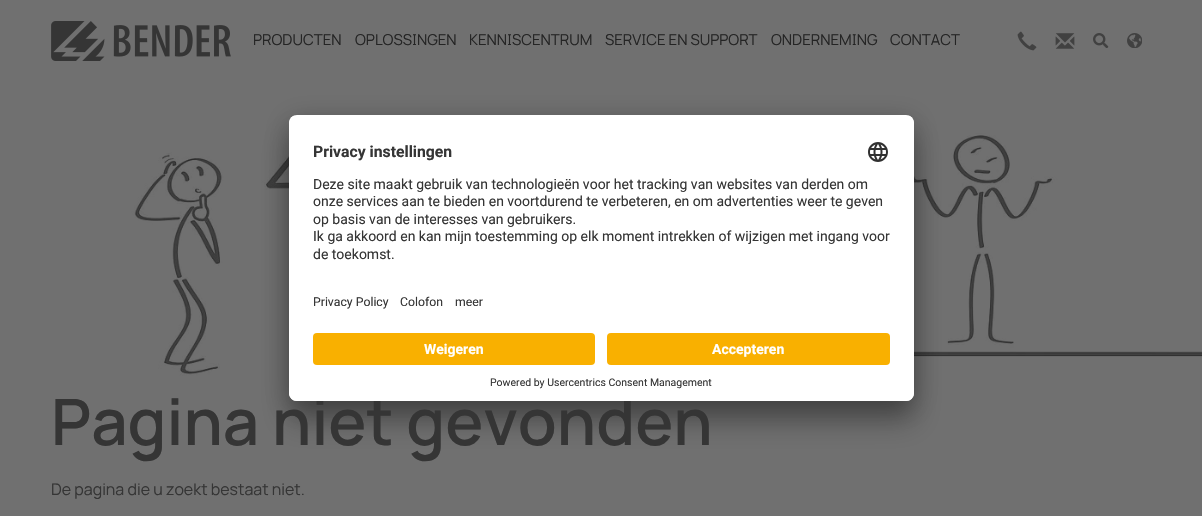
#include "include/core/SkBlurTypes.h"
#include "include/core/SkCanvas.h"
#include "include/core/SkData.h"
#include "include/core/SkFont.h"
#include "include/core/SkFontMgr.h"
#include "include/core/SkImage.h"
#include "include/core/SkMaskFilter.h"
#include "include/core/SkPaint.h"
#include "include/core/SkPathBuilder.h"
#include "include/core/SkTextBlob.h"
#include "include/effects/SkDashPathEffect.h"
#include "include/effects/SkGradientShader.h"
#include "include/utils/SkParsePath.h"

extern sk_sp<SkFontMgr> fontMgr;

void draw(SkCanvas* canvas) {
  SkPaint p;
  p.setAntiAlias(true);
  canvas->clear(SkColorSetRGB(112, 112, 112));
  canvas->drawImageRect(SkImages::DeferredFromEncodedData(SkData::MakeFromFileName("images/1.png")), SkRect::MakeLTRB(51, 21, 231, 61), SkSamplingOptions());
  canvas->drawImageRect(SkImages::DeferredFromEncodedData(SkData::MakeFromFileName("images/2.png")), SkRect::MakeLTRB(1017, 31, 1037, 51), SkSamplingOptions());
  canvas->drawImageRect(SkImages::DeferredFromEncodedData(SkData::MakeFromFileName("images/3.png")), SkRect::MakeLTRB(1055, 33, 1075, 49), SkSamplingOptions());
  canvas->drawImageRect(SkImages::DeferredFromEncodedData(SkData::MakeFromFileName("images/4.png")), SkRect::MakeLTRB(1093, 33, 1109, 48), SkSamplingOptions());
  canvas->drawImageRect(SkImages::DeferredFromEncodedData(SkData::MakeFromFileName("images/5.png")), SkRect::MakeLTRB(1127, 33, 1142, 48), SkSamplingOptions());
  canvas->drawImageRect(SkImages::DeferredFromEncodedData(SkData::MakeFromFileName("images/6.png")), SkRect::MakeLTRB(131, 121, 1202, 376), SkSamplingOptions());
  p.setColor(SkColorSetARGB(77, 0, 0, 0));
  p.setMaskFilter(SkMaskFilter::MakeBlur(kNormal_SkBlurStyle, 14));
  canvas->drawRoundRect(SkRect::MakeLTRB(289, 135, 914, 421), 8, 8, p);
  p.setMaskFilter(nullptr);
  p.setColor(SkColorSetARGB(56, 0, 0, 0));
  p.setMaskFilter(SkMaskFilter::MakeBlur(kNormal_SkBlurStyle, 13));
  canvas->drawRoundRect(SkRect::MakeLTRB(289, 120, 914, 406), 8, 8, p);
  p.setMaskFilter(nullptr);
  SkFont font1(fontMgr->matchFamilyStyle("Manrope", SkFontStyle::Normal()), 15);
  font1.setSubpixel(true);
  p.setColor(SkColorSetRGB(36, 36, 36));
  canvas->drawString("PRODUCTEN", 253, 45, font1, p);
  canvas->drawString("OPLOSSINGEN", 355, 45, font1, p);
  canvas->drawString("KENNISCENTRUM", 469, 45, font1, p);
  canvas->drawString("SERVICE EN SUPPORT", 605, 45, font1, p);
  canvas->drawString("ONDERNEMING", 771, 45, font1, p);
  canvas->drawString("CONTACT", 890, 45, font1, p);
  SkFont font2(fontMgr->matchFamilyStyle("Manrope", SkFontStyle(600, SkFontStyle::kNormal_Width, SkFontStyle::kUpright_Slant)), 64);
  font2.setSubpixel(true);
  p.setColor(SkColorSetRGB(53, 53, 53));
  canvas->drawString("Pagina niet gevonden", 51, 445, font2, p);
  p.setColor(SK_ColorWHITE);
  canvas->drawRoundRect(SkRect::MakeLTRB(289, 115, 914, 401), 8, 8, p);
  canvas->save();
  canvas->clipPath(SkPathBuilder().moveTo(297, 115).lineTo(906, 115).cubicTo(910.5f, 115, 914, 118.5f, 914, 123).lineTo(914, 393).cubicTo(914, 397.5f, 910.5f, 401, 906, 401).lineTo(297, 401).cubicTo(292.5f, 401, 289, 397.5f, 289, 393).lineTo(289, 123).cubicTo(289, 118.5f, 292.5f, 115, 297, 115).close().detach(), true);
  canvas->clipPath(SkPathBuilder().moveTo(297, 115).lineTo(906, 115).cubicTo(910.5f, 115, 914, 118.5f, 914, 123).lineTo(914, 325).lineTo(289, 325).lineTo(289, 123).cubicTo(289, 118.5f, 292.5f, 115, 297, 115).close().detach(), true);
  canvas->drawRect(SkRect::MakeLTRB(289, 116, 914, 325), p);
  canvas->restore();
  canvas->drawImageRect(SkImages::DeferredFromEncodedData(SkData::MakeFromFileName("images/7.png")), SkRect::MakeLTRB(868, 142, 888, 162), SkSamplingOptions());
  SkFont font3(fontMgr->matchFamilyStyle("Roboto", SkFontStyle::Normal()), 12.25f);
  font3.setSubpixel(true);
  p.setColor(SkColorSetRGB(53, 53, 53));
  canvas->drawString("Colofon", 400, 306, font3, p);
  canvas->drawString("Privacy Policy", 313, 306, font3, p);
  SkFont font4(fontMgr->matchFamilyStyle("Roboto", SkFontStyle::Bold()), 15.75f);
  font4.setSubpixel(true);
  canvas->drawString("Privacy instellingen", 313, 157, font4, p);
  SkFont font5(fontMgr->matchFamilyStyle("Roboto", SkFontStyle::Normal()), 14);
  font5.setSubpixel(true);
  canvas->drawString("de toekomst.", 313, 259, font5, p);
  canvas->drawString("Ik ga akkoord en kan mijn toestemming op elk moment intrekken of wijzigen met ingang voor", 313, 241, font5, p);
  canvas->drawString("op basis van de interesses van gebruikers.", 313, 224, font5, p);
  canvas->drawString("onze services aan te bieden en voortdurend te verbeteren, en om advertenties weer te geven", 313, 206, font5, p);
  canvas->drawString("Deze site maakt gebruik van technologieën voor het tracking van websites van derden om", 313, 189, font5, p);
  canvas->drawString("meer", 455, 306, font3, p);
  p.setColor(SK_ColorWHITE);
  canvas->drawPath(SkPathBuilder().moveTo(289, 325).lineTo(914, 325).lineTo(914, 393).cubicTo(914, 397.5f, 910.5f, 401, 906, 401).lineTo(297, 401).cubicTo(292.5f, 401, 289, 397.5f, 289, 393).close().detach(), p);
  SkFont font6(fontMgr->matchFamilyStyle("Roboto", SkFontStyle::Normal()), 10.5f);
  font6.setSubpixel(true);
  p.setColor(SkColorSetRGB(53, 53, 53));
  canvas->drawString("Powered by Usercentrics Consent Management", 490, 386, font6, p);
  p.setColor(SkColorSetRGB(249, 176, 0));
  canvas->drawRoundRect(SkRect::MakeLTRB(607, 333, 890, 365), 4, 4, p);
  SkFont font7(fontMgr->matchFamilyStyle("Roboto", SkFontStyle::Bold()), 14);
  font7.setSubpixel(true);
  p.setColor(SK_ColorWHITE);
  canvas->drawString("Accepteren", 712, 354, font7, p);
  p.setColor(SkColorSetRGB(249, 176, 0));
  canvas->drawRoundRect(SkRect::MakeLTRB(313, 333, 595, 365), 4, 4, p);
  p.setColor(SK_ColorWHITE);
  canvas->drawString("Weigeren", 424, 354, font7, p);
  SkFont font8(fontMgr->matchFamilyStyle("Manrope", SkFontStyle::Normal()), 16);
  font8.setSubpixel(true);
  p.setColor(SkColorSetRGB(53, 53, 53));
  canvas->drawString("De pagina die u zoekt bestaat niet.", 51, 495, font8, p);
}
